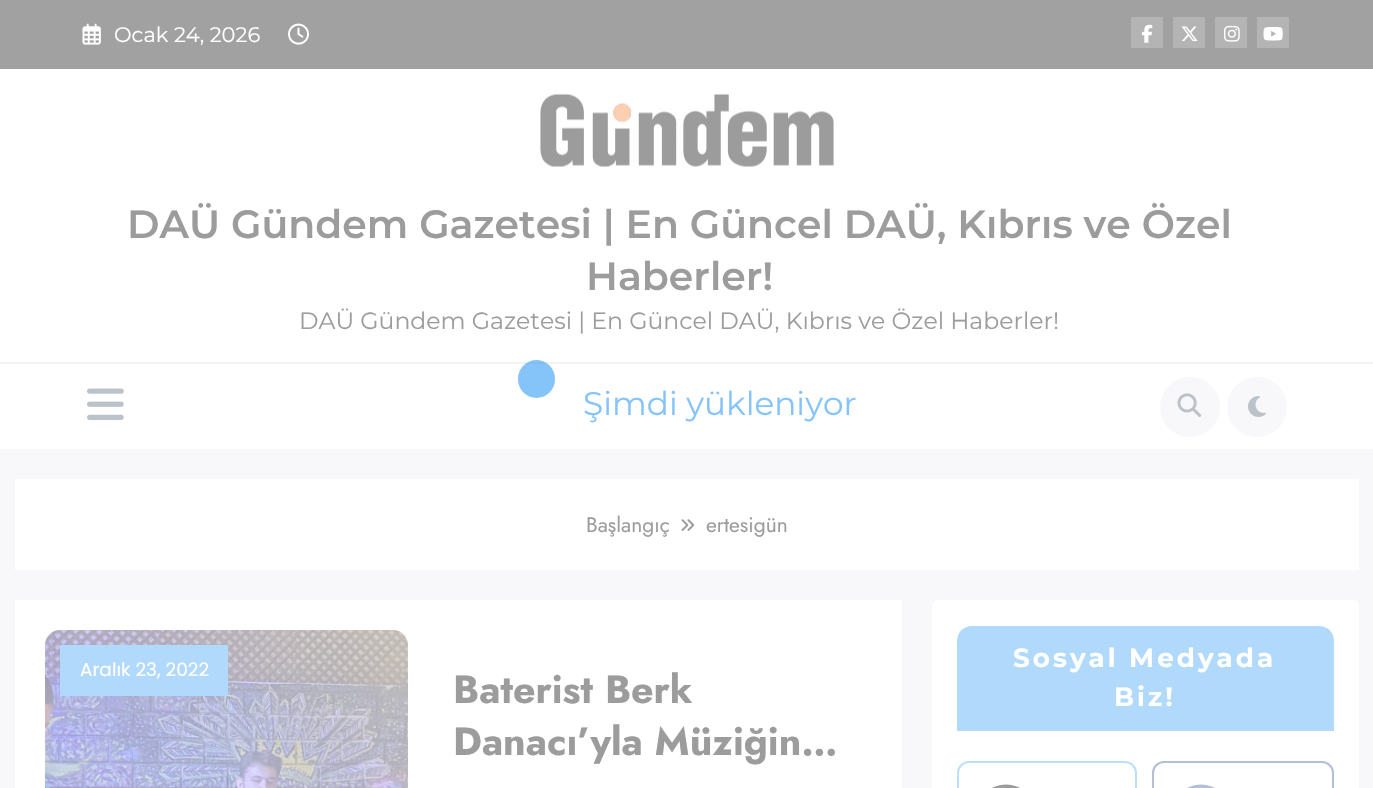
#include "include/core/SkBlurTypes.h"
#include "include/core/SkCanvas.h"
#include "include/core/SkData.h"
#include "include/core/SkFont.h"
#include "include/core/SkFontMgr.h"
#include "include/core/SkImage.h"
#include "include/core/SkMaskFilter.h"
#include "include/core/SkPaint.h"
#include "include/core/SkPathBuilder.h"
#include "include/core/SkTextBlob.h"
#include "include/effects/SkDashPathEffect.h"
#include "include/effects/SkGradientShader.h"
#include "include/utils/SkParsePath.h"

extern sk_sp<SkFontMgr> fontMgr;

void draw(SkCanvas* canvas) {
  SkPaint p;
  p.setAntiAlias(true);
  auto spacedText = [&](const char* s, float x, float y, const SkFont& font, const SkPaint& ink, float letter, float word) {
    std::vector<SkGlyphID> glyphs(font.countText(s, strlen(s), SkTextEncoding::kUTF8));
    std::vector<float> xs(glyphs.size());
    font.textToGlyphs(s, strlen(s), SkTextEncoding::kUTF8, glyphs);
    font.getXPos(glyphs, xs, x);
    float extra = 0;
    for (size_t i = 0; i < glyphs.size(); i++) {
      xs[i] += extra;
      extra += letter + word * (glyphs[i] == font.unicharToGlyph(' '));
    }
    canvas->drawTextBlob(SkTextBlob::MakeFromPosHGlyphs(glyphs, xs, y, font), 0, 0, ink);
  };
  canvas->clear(SkColorSetRGB(248, 248, 251));
  p.setColor(SkColorSetRGB(161, 161, 161));
  canvas->drawRect(SkRect::MakeLTRB(0, 0, 1373, 69), p);
  canvas->drawImageRect(SkImages::DeferredFromEncodedData(SkData::MakeFromFileName("images/1.png")), SkRect::MakeLTRB(82, 23, 101, 45), SkSamplingOptions());
  canvas->drawImageRect(SkImages::DeferredFromEncodedData(SkData::MakeFromFileName("images/2.png")), SkRect::MakeLTRB(288, 23, 309, 45), SkSamplingOptions());
  p.setColor(SkColorSetRGB(180, 180, 180));
  canvas->drawRect(SkRect::MakeLTRB(1131, 17, 1163, 48), p);
  canvas->drawImageRect(SkImages::DeferredFromEncodedData(SkData::MakeFromFileName("images/3.png")), SkRect::MakeLTRB(1142, 24, 1153, 43), SkSamplingOptions());
  canvas->drawRect(SkRect::MakeLTRB(1173, 17, 1205, 48), p);
  canvas->drawImageRect(SkImages::DeferredFromEncodedData(SkData::MakeFromFileName("images/4.png")), SkRect::MakeLTRB(1181, 26, 1198, 42), SkSamplingOptions());
  canvas->drawRect(SkRect::MakeLTRB(1215, 17, 1247, 48), p);
  canvas->drawImageRect(SkImages::DeferredFromEncodedData(SkData::MakeFromFileName("images/5.png")), SkRect::MakeLTRB(1224, 25, 1240, 42), SkSamplingOptions());
  canvas->drawRect(SkRect::MakeLTRB(1257, 17, 1289, 48), p);
  canvas->drawImageRect(SkImages::DeferredFromEncodedData(SkData::MakeFromFileName("images/6.png")), SkRect::MakeLTRB(1263, 27, 1283, 41), SkSamplingOptions());
  p.setColor(SK_ColorWHITE);
  canvas->drawRect(SkRect::MakeLTRB(0, 69, 1373, 449), p);
  canvas->drawImageRect(SkImages::DeferredFromEncodedData(SkData::MakeFromFileName("images/7.png")), SkRect::MakeLTRB(540, 94, 834, 167), SkSamplingOptions());
  p.setColor(SkColorSetRGB(243, 243, 243));
  canvas->drawRect(SkRect::MakeLTRB(0, 362, 1373, 364), p);
  canvas->drawImageRect(SkImages::DeferredFromEncodedData(SkData::MakeFromFileName("images/8.png")), SkRect::MakeLTRB(87, 388, 124, 420), SkSamplingOptions());
  p.setColor(SkColorSetRGB(248, 248, 251));
  canvas->drawCircle(1190, 407, 30, p);
  canvas->drawImageRect(SkImages::DeferredFromEncodedData(SkData::MakeFromFileName("images/9.png")), SkRect::MakeLTRB(1177, 393, 1202, 417), SkSamplingOptions());
  canvas->drawCircle(1257, 407, 30, p);
  canvas->drawImageRect(SkImages::DeferredFromEncodedData(SkData::MakeFromFileName("images/10.png")), SkRect::MakeLTRB(1248, 396, 1266, 417), SkSamplingOptions());
  p.setColor(SkColorSetARGB(156, 54, 158, 246));
  canvas->drawRoundRect(SkRect::MakeLTRB(518, 360, 555, 398), 18.5f, 18.5f, p);
  p.setColor(SK_ColorWHITE);
  canvas->drawRect(SkRect::MakeLTRB(15, 479, 1359, 570), p);
  canvas->drawImageRect(SkImages::DeferredFromEncodedData(SkData::MakeFromFileName("images/11.png")), SkRect::MakeLTRB(681, 519, 695, 531), SkSamplingOptions());
  canvas->drawRect(SkRect::MakeLTRB(15, 600, 902, 788), p);
  canvas->drawImageRect(SkImages::DeferredFromEncodedData(SkData::MakeFromFileName("images/12.png")), SkRect::MakeLTRB(45, 630, 408, 788), SkSamplingOptions());
  p.setColor(SkColorSetRGB(177, 217, 251));
  canvas->drawRect(SkRect::MakeLTRB(60, 645, 228, 696), p);
  p.setColor(SK_ColorWHITE);
  canvas->drawRoundRect(SkRect::MakeLTRB(932, 600, 1359, 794), 6, 6, p);
  p.setColor(SkColorSetRGB(177, 217, 251));
  canvas->drawRect(SkRect::MakeLTRB(957, 729, 1334, 731), p);
  canvas->drawPath(SkPathBuilder().moveTo(972, 626).lineTo(1319, 626).cubicTo(1327.5f, 626, 1334, 632.5f, 1334, 641).lineTo(1334, 729).lineTo(957, 729).lineTo(957, 641).cubicTo(957, 632.5f, 963.5f, 626, 972, 626).close().detach(), p);
  p.setStyle(SkPaint::kStroke_Style);
  p.setStrokeWidth(2);
  p.setColor(SkColorSetRGB(189, 223, 248));
  canvas->drawRoundRect(SkRect::MakeLTRB(958, 762, 1136, 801), 11, 11, p);
  p.setStyle(SkPaint::kFill_Style);
  p.setColor(SkColorSetRGB(156, 156, 156));
  canvas->drawOval(SkRect::MakeLTRB(978, 784.5f, 1034, 835.5f), p);
  p.setStyle(SkPaint::kStroke_Style);
  p.setColor(SkColorSetRGB(179, 190, 215));
  canvas->drawRoundRect(SkRect::MakeLTRB(1153, 762, 1333, 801), 11, 11, p);
  p.setStyle(SkPaint::kFill_Style);
  canvas->drawOval(SkRect::MakeLTRB(1173, 784.5f, 1229, 835.5f), p);
  SkFont font1(fontMgr->matchFamilyStyle("Montserrat", SkFontStyle::Normal()), 21);
  font1.setSubpixel(true);
  p.setColor(SK_ColorWHITE);
  canvas->drawString("Ocak 24, 2026", 114, 42, font1, p);
  SkFont font2(fontMgr->matchFamilyStyle("Montserrat", SkFontStyle(600, SkFontStyle::kNormal_Width, SkFontStyle::kUpright_Slant)), 39.4f);
  font2.setSubpixel(true);
  p.setColor(SkColorSetRGB(156, 156, 156));
  canvas->drawString("DAÜ Gündem Gazetesi | En Güncel DAÜ, Kıbrıs ve Özel", 127, 238, font2, p);
  canvas->drawString("Haberler!", 586, 290, font2, p);
  SkFont font3(fontMgr->matchFamilyStyle("Montserrat", SkFontStyle::Normal()), 23.6f);
  font3.setSubpixel(true);
  canvas->drawString("DAÜ Gündem Gazetesi | En Güncel DAÜ, Kıbrıs ve Özel Haberler!", 299, 329, font3, p);
  SkFont font4(fontMgr->matchFamilyStyle("Montserrat", SkFontStyle::Normal()), 32.75f);
  font4.setSubpixel(true);
  p.setColor(SkColorSetRGB(133, 196, 250));
  canvas->drawString("Şimdi yükleniyor", 583, 415, font4, p);
  SkFont font5(fontMgr->matchFamilyStyle("Jost", SkFontStyle::Normal()), 21);
  font5.setSubpixel(true);
  p.setColor(SkColorSetRGB(156, 156, 156));
  canvas->drawString("Başlangıç", 586, 532, font5, p);
  canvas->drawString("ertesigün", 706, 532, font5, p);
  SkFont font6(fontMgr->matchFamilyStyle("Poppins", SkFontStyle::Normal()), 18.5f);
  font6.setSubpixel(true);
  p.setColor(SK_ColorWHITE);
  canvas->drawString("Aralık 23, 2022", 80, 676, font6, p);
  SkFont font7(fontMgr->matchFamilyStyle("Jost", SkFontStyle::Bold()), 39.4f);
  font7.setSubpixel(true);
  p.setColor(SkColorSetRGB(156, 156, 156));
  canvas->drawString("Baterist Berk", 453, 703, font7, p);
  canvas->drawString("Danacı’yla Müziğin…", 453, 755, font7, p);
  SkFont font8(fontMgr->matchFamilyStyle("Montserrat", SkFontStyle::Bold()), 26.25f);
  font8.setSubpixel(true);
  p.setColor(SK_ColorWHITE);
  spacedText("Sosyal Medyada", 1013, 667, font8, p, 3, 0);
  spacedText("Biz!", 1114, 706, font8, p, 3, 0);
}
